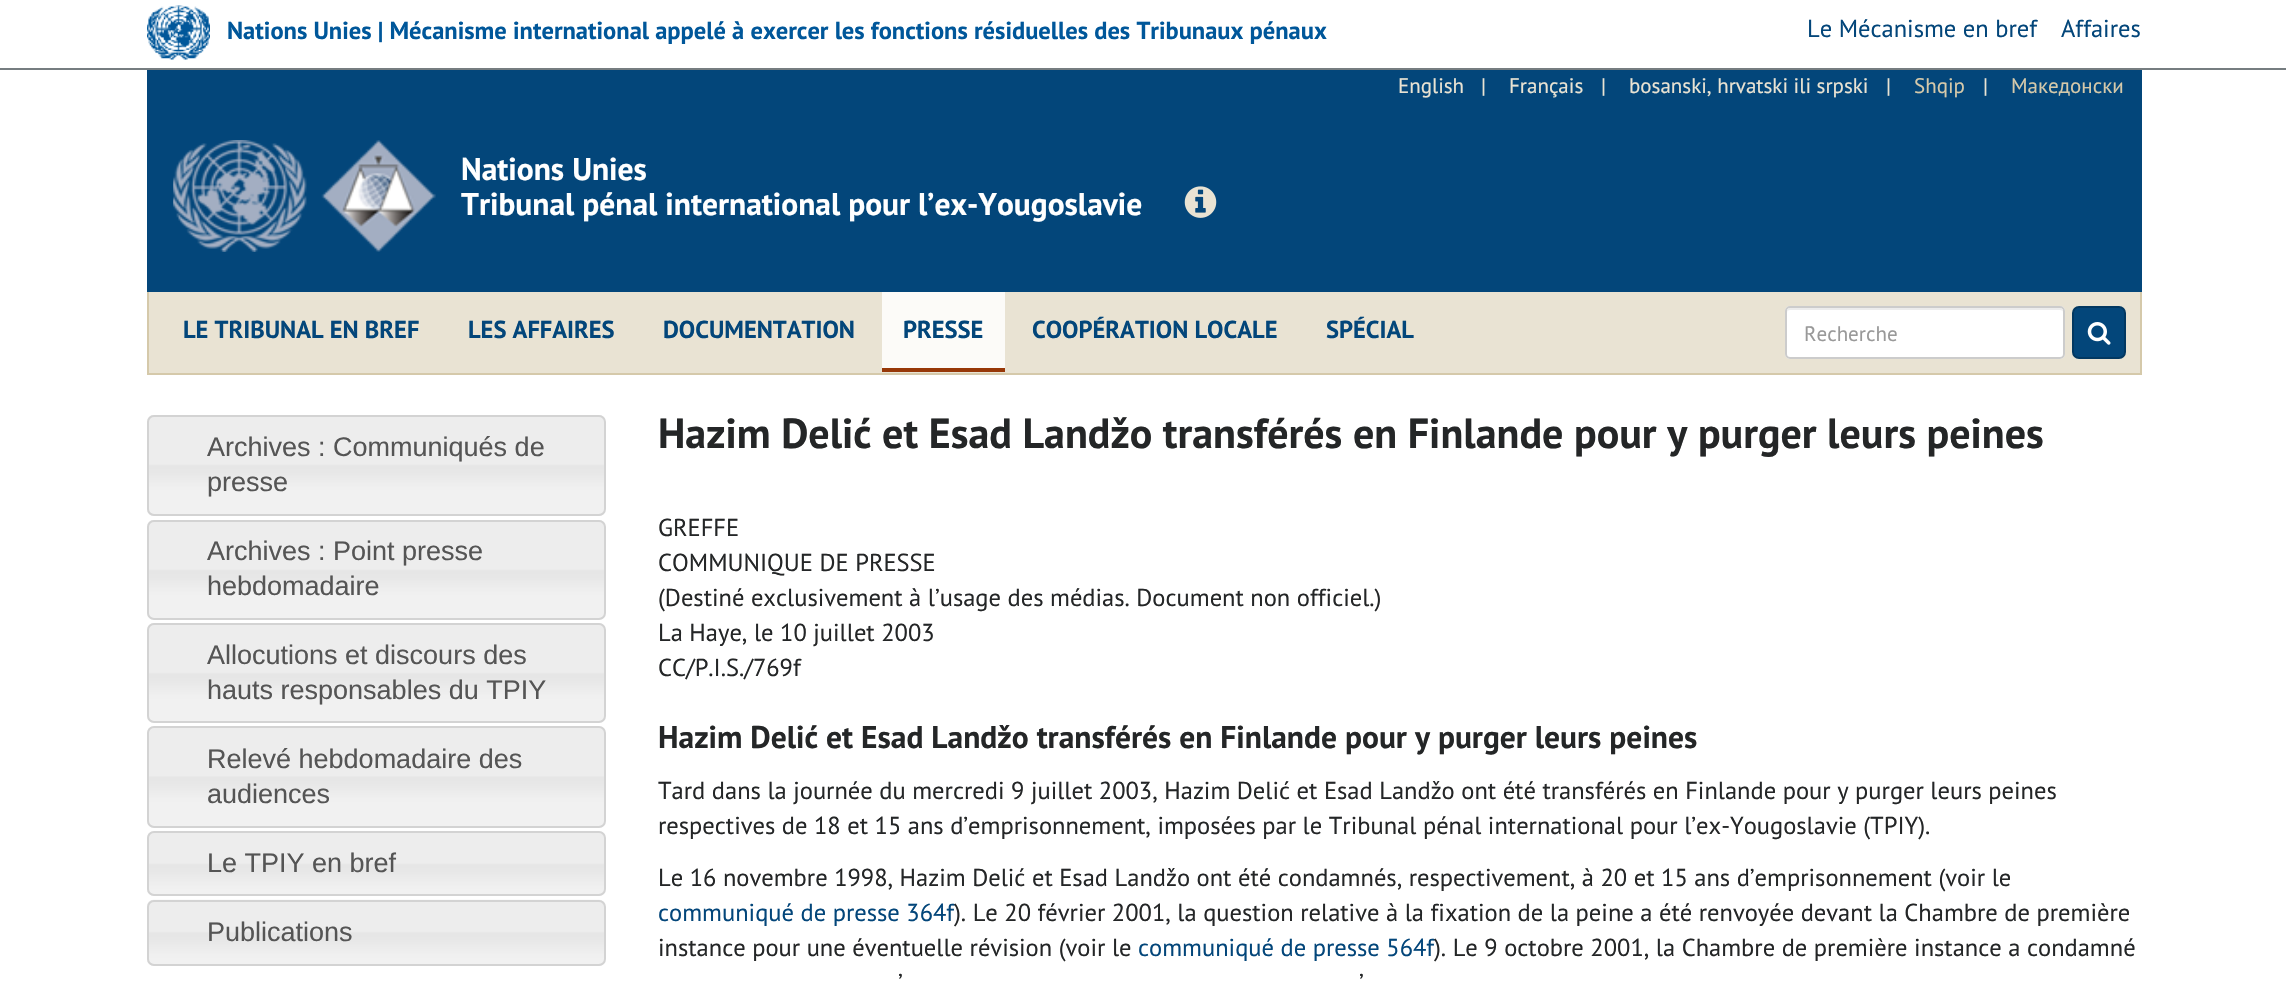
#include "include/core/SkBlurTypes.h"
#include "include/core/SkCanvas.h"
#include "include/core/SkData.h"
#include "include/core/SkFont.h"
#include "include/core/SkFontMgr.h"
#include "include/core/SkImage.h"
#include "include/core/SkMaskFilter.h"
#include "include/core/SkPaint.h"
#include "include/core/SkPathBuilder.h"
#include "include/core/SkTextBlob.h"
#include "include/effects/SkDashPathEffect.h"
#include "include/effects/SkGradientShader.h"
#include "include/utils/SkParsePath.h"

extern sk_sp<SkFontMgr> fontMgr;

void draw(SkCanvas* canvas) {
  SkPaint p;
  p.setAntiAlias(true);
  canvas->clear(SK_ColorWHITE);
  p.setColor(SkColorSetRGB(118, 125, 128));
  canvas->drawRect(SkRect::MakeLTRB(0, 68, 2286, 70), p);
  canvas->drawImageRect(SkImages::DeferredFromEncodedData(SkData::MakeFromFileName("images/1.png")), SkRect::MakeLTRB(147, 5, 210, 60), SkSamplingOptions());
  p.setColor(SkColorSetRGB(3, 70, 122));
  canvas->drawRect(SkRect::MakeLTRB(147, 70, 2142, 292), p);
  canvas->drawImageRect(SkImages::DeferredFromEncodedData(SkData::MakeFromFileName("images/2.png")), SkRect::MakeLTRB(173, 140, 436, 252), SkSamplingOptions());
  canvas->drawImageRect(SkImages::DeferredFromEncodedData(SkData::MakeFromFileName("images/3.png")), SkRect::MakeLTRB(1184, 186, 1217, 218), SkSamplingOptions());
  p.setColor(SkColorSetRGB(233, 227, 211));
  canvas->drawRect(SkRect::MakeLTRB(149, 292, 2140, 373), p);
  p.setColor(SkColorSetRGB(213, 201, 170));
  canvas->drawRect(SkRect::MakeLTRB(2140, 292, 2142, 375), p);
  canvas->drawRect(SkRect::MakeLTRB(147, 373, 2142, 375), p);
  canvas->drawRect(SkRect::MakeLTRB(147, 292, 149, 375), p);
  p.setColor(SkColorSetRGB(252, 251, 248));
  canvas->drawRect(SkRect::MakeLTRB(882, 292, 1005, 368), p);
  p.setColor(SkColorSetRGB(151, 56, 8));
  canvas->drawRect(SkRect::MakeLTRB(882, 368, 1005, 372), p);
  p.setColor(SK_ColorWHITE);
  canvas->drawRoundRect(SkRect::MakeLTRB(1785, 306, 2065, 359), 5, 5, p);
  p.setColor(SkColorSetRGB(236, 236, 236));
  canvas->drawPath(SkPathBuilder().moveTo(1790, 310).lineTo(2060, 310).cubicTo(2062, 310, 2063, 311, 2063, 313).cubicTo(2063, 310, 2062, 308, 2059, 308).lineTo(1791, 308).cubicTo(1788, 308, 1787, 310, 1787, 313).cubicTo(1787, 311, 1788, 310, 1790, 310).close().detach(), p);
  p.setStyle(SkPaint::kStroke_Style);
  p.setStrokeWidth(2);
  p.setColor(SkColorSetRGB(204, 204, 204));
  canvas->drawRoundRect(SkRect::MakeLTRB(1786, 307, 2064, 358), 4, 4, p);
  p.setStyle(SkPaint::kFill_Style);
  p.setColor(SkColorSetRGB(3, 70, 122));
  canvas->drawRoundRect(SkRect::MakeLTRB(2073, 307, 2125, 358), 6, 6, p);
  p.setStyle(SkPaint::kStroke_Style);
  p.setColor(SkColorSetRGB(2, 56, 97));
  canvas->drawRoundRect(SkRect::MakeLTRB(2073, 307, 2125, 358), 6, 6, p);
  canvas->drawImageRect(SkImages::DeferredFromEncodedData(SkData::MakeFromFileName("images/4.png")), SkRect::MakeLTRB(2087, 322, 2111, 345), SkSamplingOptions());
  canvas->drawImageRect(SkImages::DeferredFromEncodedData(SkData::MakeFromFileName("images/5.png")), SkRect::MakeLTRB(147, 415, 606, 516), SkSamplingOptions());
  p.setColor(SkColorSetRGB(211, 211, 211));
  canvas->drawRoundRect(SkRect::MakeLTRB(148, 416, 605, 515), 6, 6, p);
  canvas->drawImageRect(SkImages::DeferredFromEncodedData(SkData::MakeFromFileName("images/6.png")), SkRect::MakeLTRB(147, 520, 606, 620), SkSamplingOptions());
  canvas->drawRoundRect(SkRect::MakeLTRB(148, 521, 605, 619), 6, 6, p);
  canvas->drawImageRect(SkImages::DeferredFromEncodedData(SkData::MakeFromFileName("images/7.png")), SkRect::MakeLTRB(147, 623, 606, 723), SkSamplingOptions());
  canvas->drawRoundRect(SkRect::MakeLTRB(148, 624, 605, 722), 6, 6, p);
  canvas->drawImageRect(SkImages::DeferredFromEncodedData(SkData::MakeFromFileName("images/8.png")), SkRect::MakeLTRB(147, 726, 606, 828), SkSamplingOptions());
  canvas->drawRoundRect(SkRect::MakeLTRB(148, 727, 605, 827), 6, 6, p);
  canvas->drawImageRect(SkImages::DeferredFromEncodedData(SkData::MakeFromFileName("images/9.png")), SkRect::MakeLTRB(147, 831, 606, 896), SkSamplingOptions());
  canvas->drawRoundRect(SkRect::MakeLTRB(148, 832, 605, 895), 6, 6, p);
  canvas->drawImageRect(SkImages::DeferredFromEncodedData(SkData::MakeFromFileName("images/10.png")), SkRect::MakeLTRB(147, 899, 606, 966), SkSamplingOptions());
  canvas->drawRoundRect(SkRect::MakeLTRB(148, 901, 605, 965), 6, 6, p);
  SkFont font1(fontMgr->matchFamilyStyle("PT Sans", SkFontStyle::Bold()), 24.5f);
  font1.setSubpixel(true);
  p.setStyle(SkPaint::kFill_Style);
  p.setColor(SkColorSetRGB(0, 87, 154));
  canvas->drawString("Nations Unies | Mécanisme international appelé à exercer les fonctions résiduelles des Tribunaux pénaux", 227, 39, font1, p);
  SkFont font2(fontMgr->matchFamilyStyle("PT Sans", SkFontStyle::Normal()), 24.5f);
  font2.setSubpixel(true);
  p.setColor(SkColorSetRGB(3, 70, 122));
  canvas->drawString("Le Mécanisme en bref", 1807, 37, font2, p);
  canvas->drawString("Affaires", 2061, 37, font2, p);
  SkFont font3(fontMgr->matchFamilyStyle("PT Sans", SkFontStyle::Normal()), 21);
  font3.setSubpixel(true);
  p.setColor(SkColorSetRGB(233, 227, 211));
  canvas->drawString("English", 1398, 93, font3, p);
  canvas->drawString("|", 1481, 93, font3, p);
  canvas->drawString("Français", 1509, 93, font3, p);
  canvas->drawString("|", 1601, 93, font3, p);
  canvas->drawString("bosanski, hrvatski ili srpski", 1629, 93, font3, p);
  canvas->drawString("|", 1886, 93, font3, p);
  p.setColor(SkColorSetRGB(213, 201, 170));
  canvas->drawString("Shqip", 1914, 93, font3, p);
  p.setColor(SkColorSetRGB(233, 227, 211));
  canvas->drawString("|", 1983, 93, font3, p);
  p.setColor(SkColorSetRGB(213, 201, 170));
  canvas->drawString("Македонски", 2011, 93, font3, p);
  SkFont font4(fontMgr->matchFamilyStyle("PT Sans", SkFontStyle::Bold()), 31.5f);
  font4.setSubpixel(true);
  p.setColor(SK_ColorWHITE);
  canvas->drawString("Nations Unies", 461, 180, font4, p);
  canvas->drawString("Tribunal pénal international pour l’ex-Yougoslavie", 461, 215, font4, p);
  p.setColor(SkColorSetRGB(3, 70, 122));
  canvas->drawString("LE TRIBUNAL EN BREF", 183, 338, font1, p);
  canvas->drawString("LES AFFAIRES", 468, 338, font1, p);
  canvas->drawString("DOCUMENTATION", 663, 338, font1, p);
  canvas->drawString("PRESSE", 903, 338, font1, p);
  canvas->drawString("COOPÉRATION LOCALE", 1032, 338, font1, p);
  canvas->drawString("SPÉCIAL", 1326, 338, font1, p);
  p.setColor(SkColorSetRGB(153, 153, 153));
  canvas->drawString("Recherche", 1804, 341, font3, p);
  SkFont font5(fontMgr->matchFamilyStyle("Liberation Sans", SkFontStyle::Normal()), 27);
  font5.setSubpixel(true);
  p.setColor(SkColorSetRGB(85, 85, 85));
  canvas->drawString("Archives : Communiqués de", 207, 456, font5, p);
  canvas->drawString("presse", 207, 491, font5, p);
  canvas->drawString("Archives : Point presse", 207, 560, font5, p);
  canvas->drawString("hebdomadaire", 207, 595, font5, p);
  canvas->drawString("Allocutions et discours des", 207, 664, font5, p);
  canvas->drawString("hauts responsables du TPIY", 207, 699, font5, p);
  canvas->drawString("Relevé hebdomadaire des", 207, 768, font5, p);
  canvas->drawString("audiences", 207, 803, font5, p);
  canvas->drawString("Le TPIY en bref", 207, 872, font5, p);
  canvas->drawString("Publications", 207, 941, font5, p);
  SkFont font6(fontMgr->matchFamilyStyle("PT Sans", SkFontStyle::Bold()), 42);
  font6.setSubpixel(true);
  p.setColor(SkColorSetRGB(36, 38, 39));
  canvas->drawString("Hazim Delić et Esad Landžo transférés en Finlande pour y purger leurs peines", 658, 448, font6, p);
  canvas->drawString("GREFFE", 658, 536, font2, p);
  canvas->drawString("COMMUNIQUE DE PRESSE", 658, 571, font2, p);
  canvas->drawString("(Destiné exclusivement à l’usage des médias. Document non officiel.)", 658, 606, font2, p);
  canvas->drawString("La Haye, le 10 juillet 2003", 658, 641, font2, p);
  canvas->drawString("CC/P.I.S./769f", 658, 676, font2, p);
  canvas->drawString("Hazim Delić et Esad Landžo transférés en Finlande pour y purger leurs peines", 658, 748, font4, p);
  canvas->drawString("Tard dans la journée du mercredi 9 juillet 2003, Hazim Delić et Esad Landžo ont été transférés en Finlande pour y purger leurs peines", 658, 799, font2, p);
  canvas->drawString("respectives de 18 et 15 ans d’emprisonnement, imposées par le Tribunal pénal international pour l’ex-Yougoslavie (TPIY).", 658, 834, font2, p);
  canvas->drawString("Le 16 novembre 1998, Hazim Delić et Esad Landžo ont été condamnés, respectivement, à 20 et 15 ans d’emprisonnement (voir le", 658, 886, font2, p);
  p.setColor(SkColorSetRGB(3, 70, 122));
  canvas->drawString("communiqué de presse 364f", 658, 921, font2, p);
  p.setColor(SkColorSetRGB(36, 38, 39));
  canvas->drawString("). Le 20 février 2001, la question relative à la fixation de la peine a été renvoyée devant la Chambre de première", 954, 921, font2, p);
  canvas->drawString("instance pour une éventuelle révision (voir le", 658, 956, font2, p);
  p.setColor(SkColorSetRGB(3, 70, 122));
  canvas->drawString("communiqué de presse 564f", 1138, 956, font2, p);
  p.setColor(SkColorSetRGB(36, 38, 39));
  canvas->drawString("). Le 9 octobre 2001, la Chambre de première instance a condamné", 1434, 956, font2, p);
  canvas->drawString("’", 898, 991, font2, p);
  canvas->drawString("’", 1359, 991, font2, p);
}
